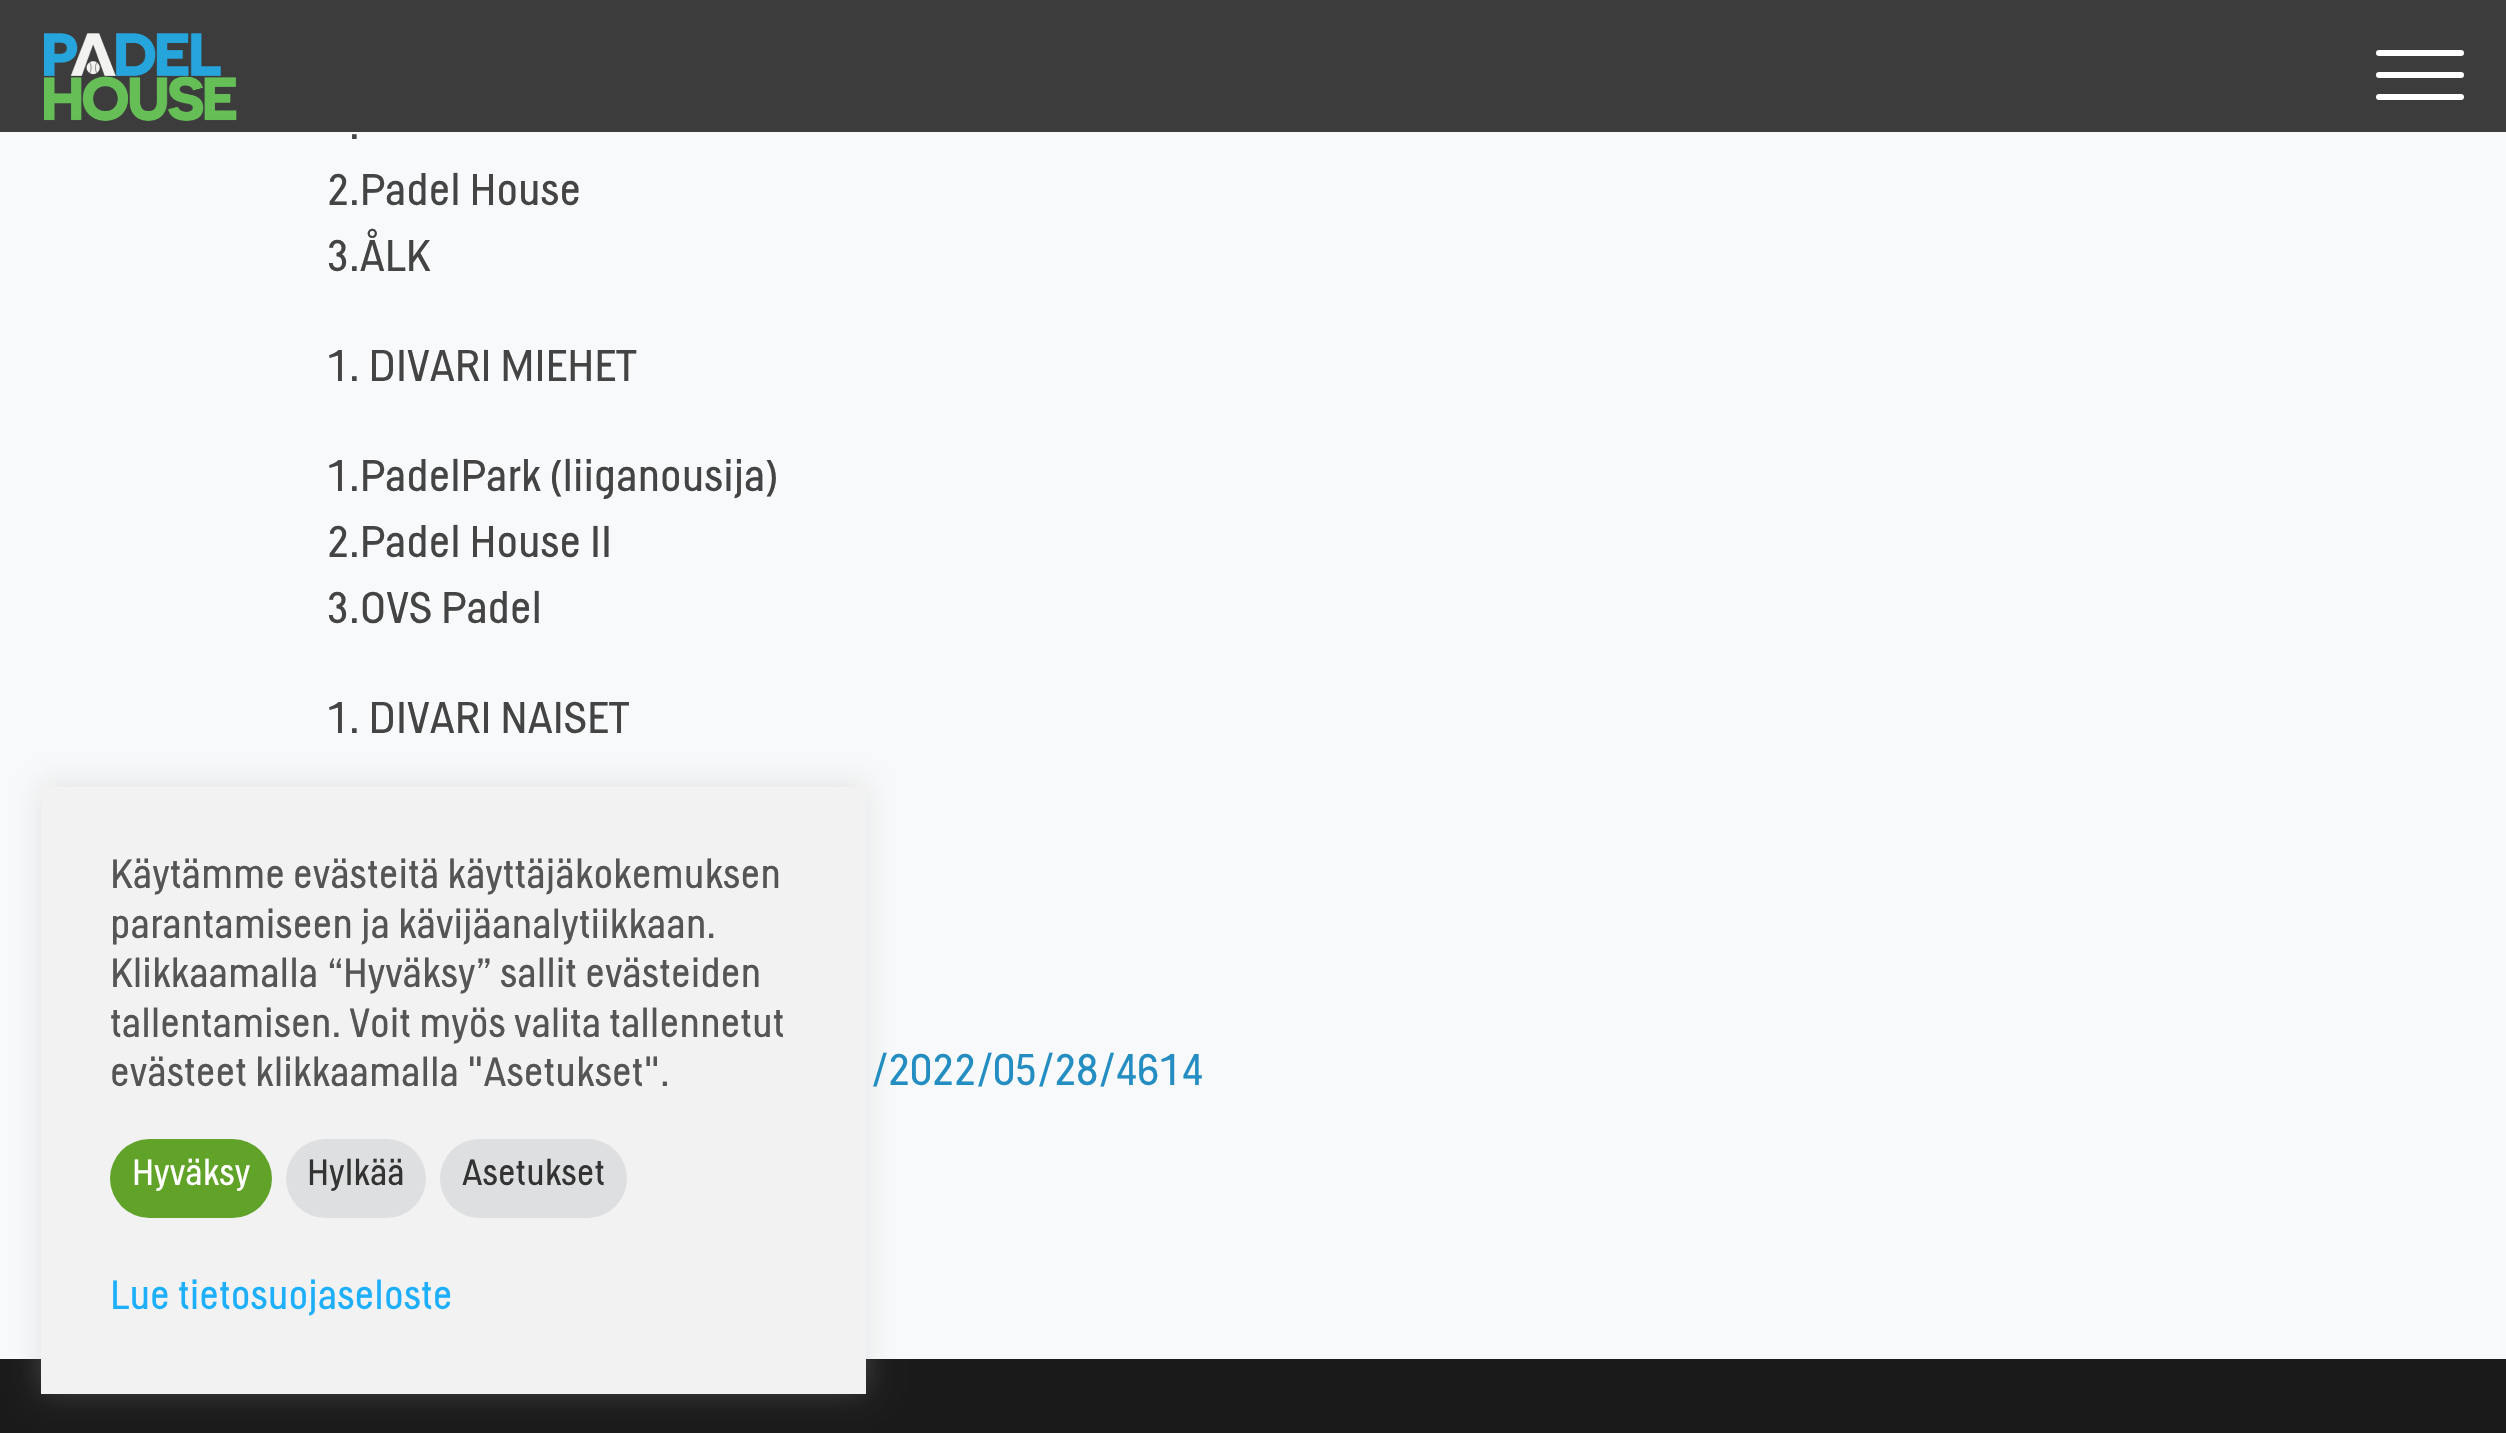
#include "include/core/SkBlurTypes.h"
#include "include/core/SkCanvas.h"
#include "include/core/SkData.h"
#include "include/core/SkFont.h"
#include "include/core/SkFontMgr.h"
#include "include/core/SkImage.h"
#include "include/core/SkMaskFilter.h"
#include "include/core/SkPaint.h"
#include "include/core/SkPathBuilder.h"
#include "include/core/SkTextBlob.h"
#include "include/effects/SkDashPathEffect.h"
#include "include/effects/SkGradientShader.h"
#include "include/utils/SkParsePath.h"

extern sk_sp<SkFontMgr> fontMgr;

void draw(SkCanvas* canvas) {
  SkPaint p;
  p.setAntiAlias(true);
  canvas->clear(SkColorSetRGB(248, 249, 250));
  p.setColor(SkColorSetARGB(242, 50, 50, 50));
  canvas->drawRect(SkRect::MakeLTRB(0, 0, 2506, 132), p);
  canvas->drawImageRect(SkImages::DeferredFromEncodedData(SkData::MakeFromFileName("images/1.png")), SkRect::MakeLTRB(44, 33, 237, 121), SkSamplingOptions());
  p.setColor(SK_ColorWHITE);
  canvas->drawRoundRect(SkRect::MakeLTRB(2376, 72, 2464, 78), 3, 3, p);
  canvas->drawRoundRect(SkRect::MakeLTRB(2376, 50, 2464, 56), 3, 3, p);
  canvas->drawRoundRect(SkRect::MakeLTRB(2376, 94, 2464, 100), 3, 3, p);
  p.setColor(SkColorSetRGB(26, 26, 26));
  canvas->drawRect(SkRect::MakeLTRB(0, 1359, 2506, 1433), p);
  p.setColor(SkColorSetARGB(77, 172, 171, 171));
  p.setMaskFilter(SkMaskFilter::MakeBlur(kNormal_SkBlurStyle, 14));
  canvas->drawRect(SkRect::MakeLTRB(41, 784, 866, 1392), p);
  p.setMaskFilter(nullptr);
  p.setColor(SkColorSetRGB(242, 242, 242));
  canvas->drawRect(SkRect::MakeLTRB(41, 787, 866, 1394), p);
  p.setColor(SkColorSetRGB(97, 162, 41));
  canvas->drawRoundRect(SkRect::MakeLTRB(110, 1139, 272, 1218), 39.5f, 39.5f, p);
  p.setColor(SkColorSetRGB(222, 223, 224));
  canvas->drawRoundRect(SkRect::MakeLTRB(286, 1139, 426, 1218), 39.5f, 39.5f, p);
  canvas->drawRoundRect(SkRect::MakeLTRB(440, 1139, 627, 1218), 39.5f, 39.5f, p);
  SkFont font1(fontMgr->matchFamilyStyle("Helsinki", SkFontStyle::Normal()), 44);
  font1.setSubpixel(true);
  p.setColor(SkColorSetRGB(68, 68, 68));
  canvas->drawString(".", 349, 139, font1, p);
  canvas->drawString("2.Padel House", 327, 205, font1, p);
  canvas->drawString("3.ÅLK", 327, 271, font1, p);
  canvas->drawString("1. DIVARI MIEHET", 327, 381, font1, p);
  canvas->drawString("1.PadelPark (liiganousija)", 327, 491, font1, p);
  canvas->drawString("2.Padel House II", 327, 557, font1, p);
  canvas->drawString("3.OVS Padel", 327, 623, font1, p);
  canvas->drawString("1. DIVARI NAISET", 327, 733, font1, p);
  p.setColor(SkColorSetRGB(36, 141, 194));
  canvas->drawString("/2022/05/28/4614", 871, 1085, font1, p);
  SkFont font2(fontMgr->matchFamilyStyle("Helsinki", SkFontStyle::Normal()), 40.3f);
  font2.setSubpixel(true);
  p.setColor(SkColorSetRGB(85, 85, 85));
  canvas->drawString("Käytämme evästeitä käyttäjäkokemuksen", 110, 888, font2, p);
  canvas->drawString("parantamiseen ja kävijäanalytiikkaan.", 110, 938, font2, p);
  canvas->drawString("Klikkaamalla “Hyväksy” sallit evästeiden", 110, 987, font2, p);
  canvas->drawString("tallentamisen. Voit myös valita tallennetut", 110, 1037, font2, p);
  canvas->drawString("evästeet klikkaamalla \"Asetukset\".", 110, 1086, font2, p);
  SkFont font3(fontMgr->matchFamilyStyle("Helsinki", SkFontStyle::Normal()), 36);
  font3.setSubpixel(true);
  p.setColor(SK_ColorWHITE);
  canvas->drawString("Hyväksy", 132, 1185, font3, p);
  p.setColor(SkColorSetRGB(51, 51, 51));
  canvas->drawString("Hylkää", 307, 1185, font3, p);
  canvas->drawString("Asetukset", 462, 1185, font3, p);
  p.setColor(SkColorSetRGB(30, 175, 251));
  canvas->drawString("Lue tietosuojaseloste", 110, 1309, font2, p);
}
